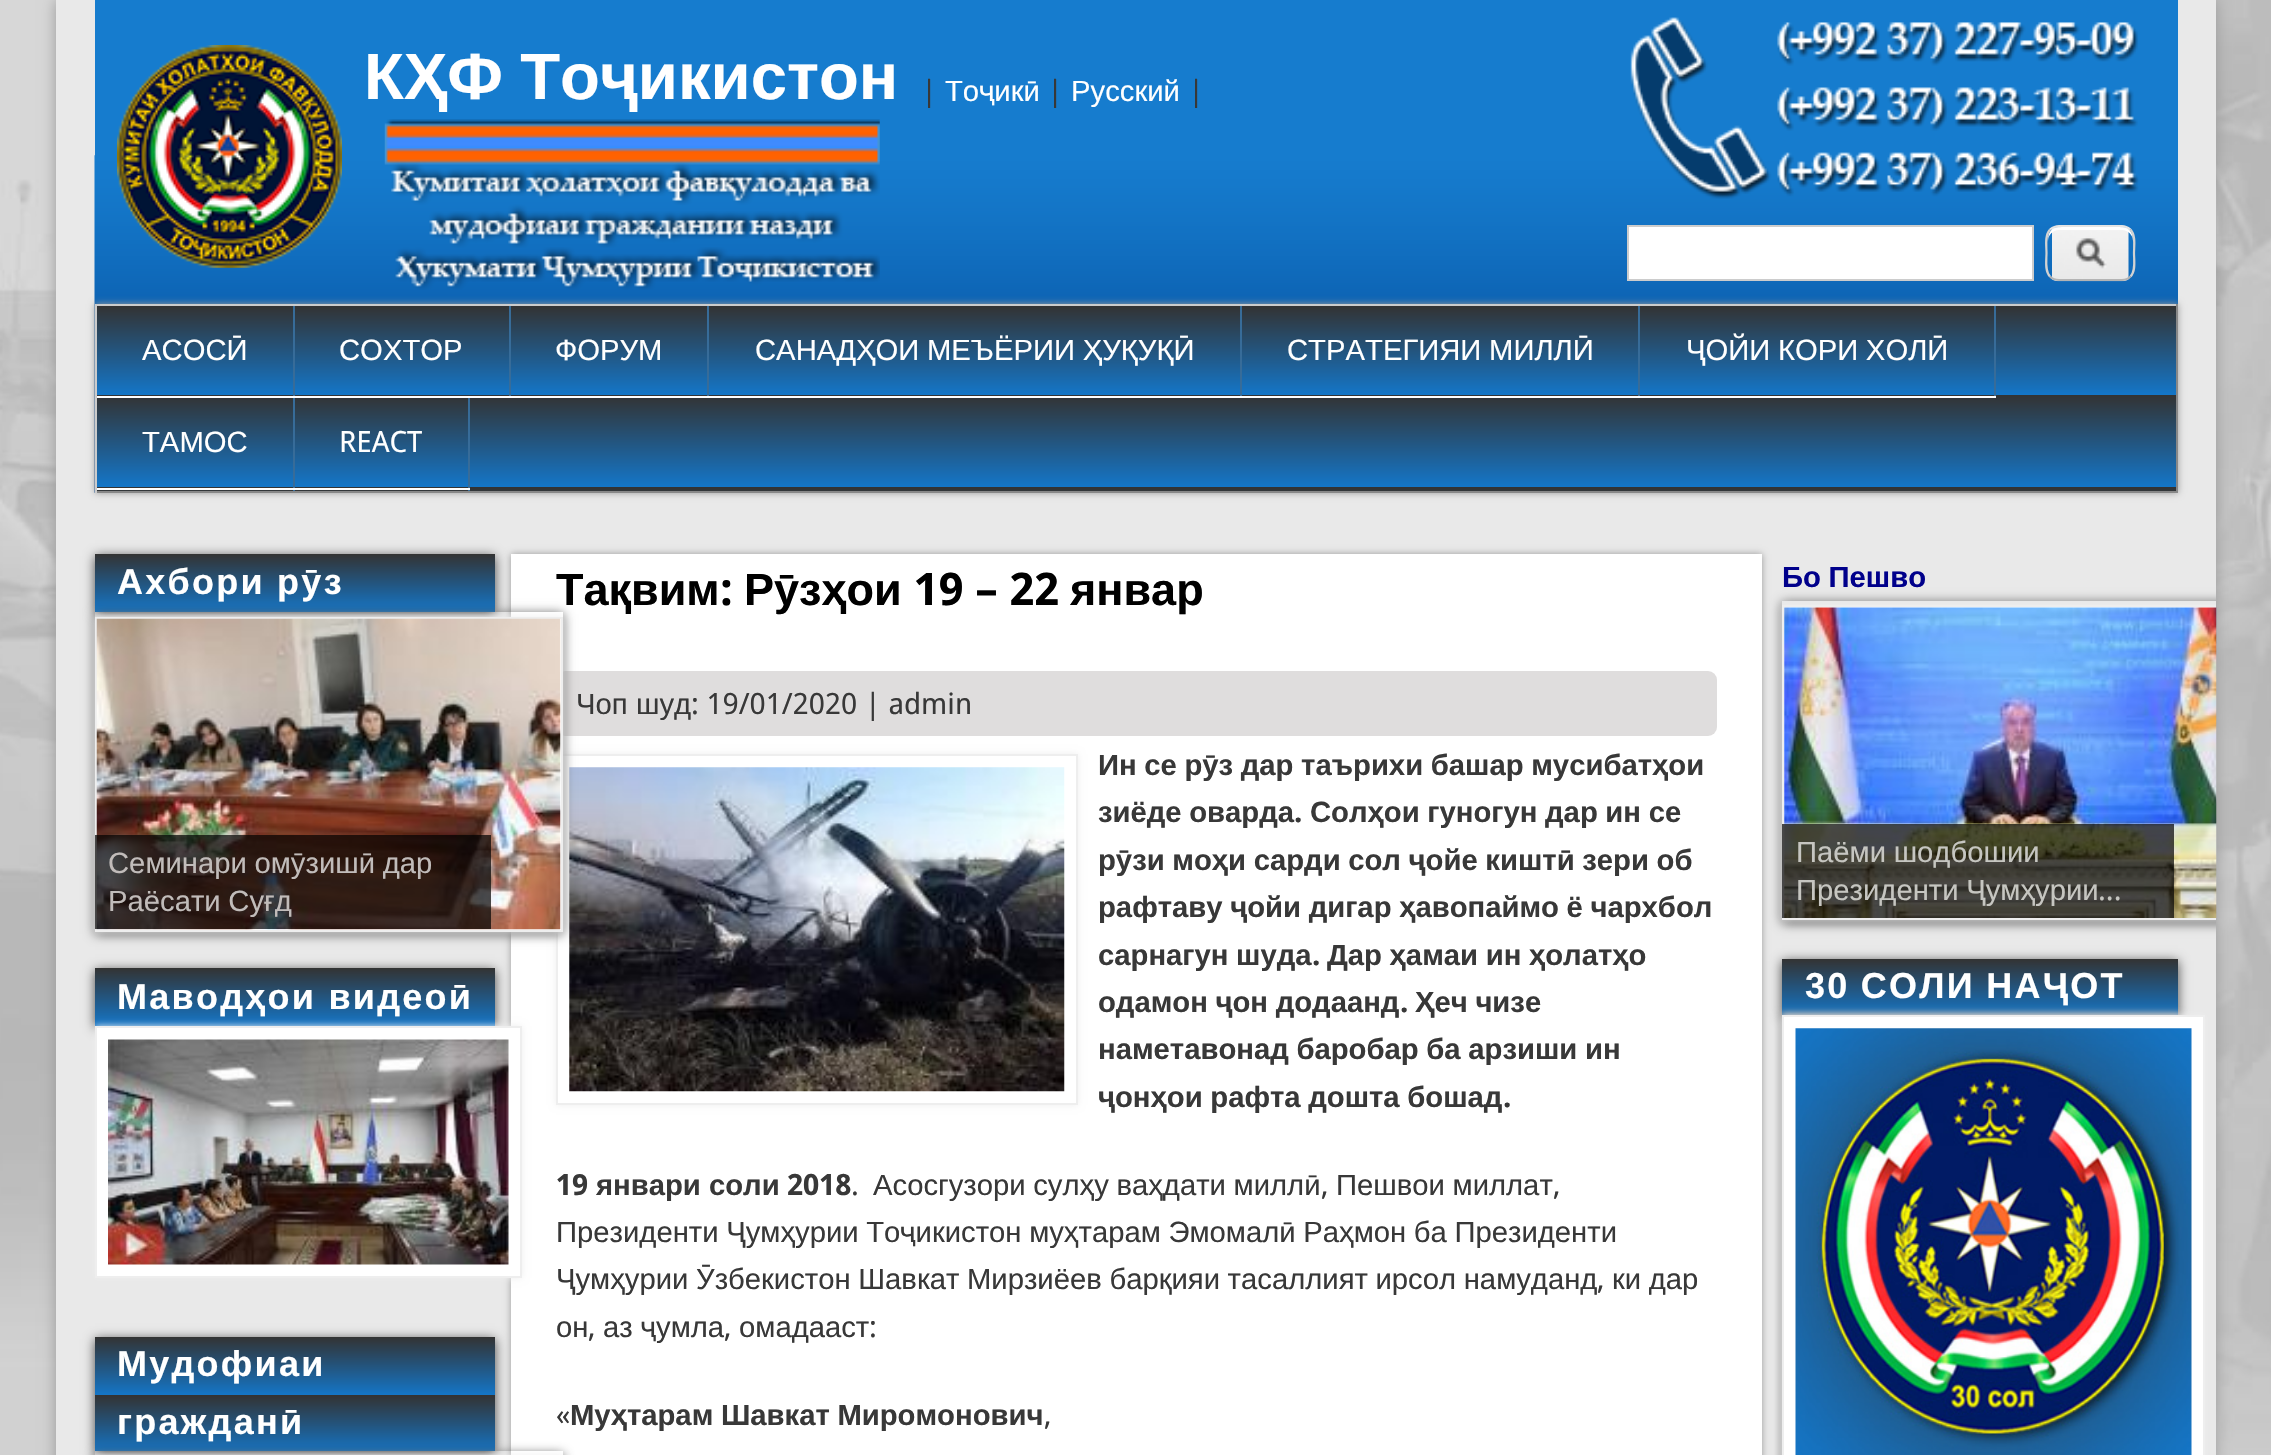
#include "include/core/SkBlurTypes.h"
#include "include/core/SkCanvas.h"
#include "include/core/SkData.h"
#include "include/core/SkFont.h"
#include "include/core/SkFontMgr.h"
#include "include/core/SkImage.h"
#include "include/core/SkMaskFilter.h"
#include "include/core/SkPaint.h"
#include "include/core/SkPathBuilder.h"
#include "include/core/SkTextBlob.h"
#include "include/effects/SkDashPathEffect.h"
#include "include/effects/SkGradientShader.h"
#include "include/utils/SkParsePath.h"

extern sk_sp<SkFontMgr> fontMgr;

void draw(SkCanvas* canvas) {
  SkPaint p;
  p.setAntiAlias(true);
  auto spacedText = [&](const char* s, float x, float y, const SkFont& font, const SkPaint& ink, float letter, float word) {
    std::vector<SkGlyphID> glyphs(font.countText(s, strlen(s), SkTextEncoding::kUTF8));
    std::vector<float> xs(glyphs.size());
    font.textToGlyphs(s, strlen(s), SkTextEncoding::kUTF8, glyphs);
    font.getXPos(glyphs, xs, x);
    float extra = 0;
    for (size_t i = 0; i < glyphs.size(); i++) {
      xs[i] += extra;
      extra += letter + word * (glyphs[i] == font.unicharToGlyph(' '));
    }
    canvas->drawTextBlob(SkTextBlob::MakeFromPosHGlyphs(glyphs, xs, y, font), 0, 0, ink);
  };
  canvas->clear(SK_ColorWHITE);
  canvas->drawImageRect(SkImages::DeferredFromEncodedData(SkData::MakeFromFileName("images/1.png")), SkRect::MakeLTRB(0, 0, 2271, 1455), SkSamplingOptions());
  p.setColor(SkColorSetRGB(153, 153, 153));
  p.setMaskFilter(SkMaskFilter::MakeBlur(kNormal_SkBlurStyle, 7));
  canvas->drawRect(SkRect::MakeLTRB(56, 0, 2216, 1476), p);
  p.setMaskFilter(nullptr);
  p.setColor(SkColorSetRGB(233, 233, 233));
  canvas->drawRect(SkRect::MakeLTRB(56, 0, 2216, 1455), p);
  p.setColor(SkColorSetRGB(22, 124, 206));
  canvas->drawRect(SkRect::MakeLTRB(95, 0, 2178, 156), p);
  canvas->drawImageRect(SkImages::DeferredFromEncodedData(SkData::MakeFromFileName("images/2.png")), SkRect::MakeLTRB(94, 155, 2178, 493), SkSamplingOptions());
  canvas->drawImageRect(SkImages::DeferredFromEncodedData(SkData::MakeFromFileName("images/3.png")), SkRect::MakeLTRB(117, 45, 342, 268), SkSamplingOptions());
  canvas->drawImageRect(SkImages::DeferredFromEncodedData(SkData::MakeFromFileName("images/4.png")), SkRect::MakeLTRB(384, 119, 880, 290), SkSamplingOptions());
  p.setColor(SkColorSetRGB(153, 153, 153));
  p.setMaskFilter(SkMaskFilter::MakeBlur(kNormal_SkBlurStyle, 3.5f));
  canvas->drawRect(SkRect::MakeLTRB(95, 304, 2178, 493), p);
  p.setMaskFilter(nullptr);
  {
    const SkColor colors[] = {SkColorSetRGB(51, 51, 51), SkColorSetRGB(20, 118, 200), SkColorSetRGB(51, 51, 51), SkColorSetRGB(20, 118, 200), SkColorSetRGB(51, 51, 51), SkColorSetRGB(20, 118, 200)};
    const float stops[] = {0, 0.33f, 0.33f, 0.67f, 0.67f, 1};
    const SkPoint ends[] = {{1136, 306}, {1136, 576}};
    p.setShader(SkGradientShader::MakeLinear(ends, colors, stops, 6, SkTileMode::kClamp));
    p.setAlpha(255);
  }
  canvas->drawRect(SkRect::MakeLTRB(97, 306, 2176, 491), p);
  p.setShader(nullptr);
  p.setColor(SkColorSetRGB(204, 204, 204));
  canvas->drawRect(SkRect::MakeLTRB(95, 304, 2178, 306), p);
  p.setColor(SkColorSetRGB(136, 136, 136));
  canvas->drawRect(SkRect::MakeLTRB(2176, 304, 2178, 493), p);
  canvas->drawRect(SkRect::MakeLTRB(95, 491, 2178, 493), p);
  p.setColor(SkColorSetRGB(204, 204, 204));
  canvas->drawRect(SkRect::MakeLTRB(95, 304, 97, 493), p);
  p.setColor(SkColorSetRGB(55, 108, 153));
  canvas->drawRect(SkRect::MakeLTRB(293, 306, 295, 491), p);
  p.setColor(SK_ColorWHITE);
  canvas->drawRect(SkRect::MakeLTRB(97, 396, 295, 398), p);
  p.setColor(SkColorSetRGB(55, 108, 153));
  canvas->drawRect(SkRect::MakeLTRB(509, 306, 511, 398), p);
  p.setColor(SK_ColorWHITE);
  canvas->drawRect(SkRect::MakeLTRB(295, 396, 511, 398), p);
  p.setColor(SkColorSetRGB(55, 108, 153));
  canvas->drawRect(SkRect::MakeLTRB(707, 306, 709, 398), p);
  p.setColor(SK_ColorWHITE);
  canvas->drawRect(SkRect::MakeLTRB(511, 396, 709, 398), p);
  p.setColor(SkColorSetRGB(55, 108, 153));
  canvas->drawRect(SkRect::MakeLTRB(1240, 306, 1242, 398), p);
  p.setColor(SK_ColorWHITE);
  canvas->drawRect(SkRect::MakeLTRB(709, 396, 1242, 398), p);
  p.setColor(SkColorSetRGB(55, 108, 153));
  canvas->drawRect(SkRect::MakeLTRB(1638, 306, 1640, 398), p);
  p.setColor(SK_ColorWHITE);
  canvas->drawRect(SkRect::MakeLTRB(1242, 396, 1640, 398), p);
  p.setColor(SkColorSetRGB(55, 108, 153));
  canvas->drawRect(SkRect::MakeLTRB(1994, 306, 1996, 398), p);
  p.setColor(SK_ColorWHITE);
  canvas->drawRect(SkRect::MakeLTRB(1640, 396, 1996, 398), p);
  canvas->drawRect(SkRect::MakeLTRB(97, 488, 295, 490), p);
  p.setColor(SkColorSetRGB(55, 108, 153));
  canvas->drawRect(SkRect::MakeLTRB(468, 398, 470, 491), p);
  p.setColor(SK_ColorWHITE);
  canvas->drawRect(SkRect::MakeLTRB(295, 488, 470, 490), p);
  canvas->drawImageRect(SkImages::DeferredFromEncodedData(SkData::MakeFromFileName("images/5.png")), SkRect::MakeLTRB(1630, 17, 2139, 199), SkSamplingOptions());
  canvas->drawRect(SkRect::MakeLTRB(1628, 226, 2033, 280), p);
  p.setStyle(SkPaint::kStroke_Style);
  p.setStrokeWidth(2);
  p.setColor(SkColorSetRGB(204, 204, 204));
  canvas->drawRect(SkRect::MakeLTRB(1628, 226, 2033, 280), p);
  canvas->drawImageRect(SkImages::DeferredFromEncodedData(SkData::MakeFromFileName("images/6.png")), SkRect::MakeLTRB(2052, 227, 2129, 282), SkSamplingOptions());
  p.setStyle(SkPaint::kFill_Style);
  p.setColor(SK_ColorWHITE);
  canvas->drawPath(SkPathBuilder().moveTo(2059, 230).lineTo(2122, 230).cubicTo(2128, 230, 2133, 235, 2133, 241).cubicTo(2133, 226, 2124, 227, 2112, 227).lineTo(2070, 227).cubicTo(2057, 227, 2048, 226, 2048, 241).cubicTo(2048, 235, 2053, 230, 2059, 230).close().detach(), p);
  p.setStyle(SkPaint::kStroke_Style);
  p.setStrokeWidth(2.2f);
  p.setColor(SkColorSetRGB(228, 228, 228));
  canvas->drawPath(SkPathBuilder().moveTo(2050, 229.5f).cubicTo(2052.5f, 227.5f, 2055.5f, 226, 2059, 226).lineTo(2122, 226).cubicTo(2125, 226, 2128, 227.5f, 2130.5f, 229.5f).detach(), p);
  p.setColor(SkColorSetRGB(210, 210, 210));
  canvas->drawPath(SkPathBuilder().moveTo(2130.5f, 229.5f).cubicTo(2136, 235.5f, 2134, 246, 2134, 253).cubicTo(2134, 260, 2136, 271, 2130.5f, 276.5f).detach(), p);
  p.setColor(SkColorSetRGB(180, 180, 180));
  canvas->drawPath(SkPathBuilder().moveTo(2130.5f, 276.5f).cubicTo(2128, 279, 2125, 280, 2122, 280).lineTo(2059, 280).cubicTo(2055.5f, 280, 2052.5f, 279, 2050, 276.5f).detach(), p);
  p.setColor(SkColorSetRGB(210, 210, 210));
  canvas->drawPath(SkPathBuilder().moveTo(2050, 276.5f).cubicTo(2044.5f, 271, 2046.5f, 260, 2046.5f, 253).cubicTo(2046.5f, 246, 2044.5f, 235.5f, 2050, 229.5f).detach(), p);
  p.setStyle(SkPaint::kFill_Style);
  p.setColor(SkColorSetRGB(153, 153, 153));
  p.setMaskFilter(SkMaskFilter::MakeBlur(kNormal_SkBlurStyle, 3.5f));
  canvas->drawRect(SkRect::MakeLTRB(511, 554, 1762, 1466), p);
  p.setMaskFilter(nullptr);
  p.setColor(SK_ColorWHITE);
  canvas->drawRect(SkRect::MakeLTRB(511, 554, 1762, 1455), p);
  p.setColor(SkColorSetRGB(74, 74, 74));
  p.setMaskFilter(SkMaskFilter::MakeBlur(kNormal_SkBlurStyle, 5.5f));
  canvas->drawRect(SkRect::MakeLTRB(95, 556, 495, 614), p);
  p.setMaskFilter(nullptr);
  {
    const SkColor colors[] = {SkColorSetRGB(51, 51, 51), SkColorSetRGB(20, 118, 200), SkColorSetRGB(51, 51, 51), SkColorSetRGB(20, 118, 200)};
    const float stops[] = {0, 0.5f, 0.5f, 1};
    const SkPoint ends[] = {{295, 554}, {295, 670}};
    p.setShader(SkGradientShader::MakeLinear(ends, colors, stops, 4, SkTileMode::kClamp));
    p.setAlpha(255);
  }
  canvas->drawRect(SkRect::MakeLTRB(95, 554, 495, 612), p);
  p.setShader(nullptr);
  p.setColor(SkColorSetRGB(223, 221, 221));
  canvas->drawRoundRect(SkRect::MakeLTRB(556, 671, 1717, 736), 9, 9, p);
  p.setColor(SkColorSetRGB(238, 238, 238));
  p.setMaskFilter(SkMaskFilter::MakeBlur(kNormal_SkBlurStyle, 3.5f));
  canvas->drawRect(SkRect::MakeLTRB(556, 754, 1078, 1105), p);
  p.setMaskFilter(nullptr);
  p.setColor(SK_ColorWHITE);
  canvas->drawRect(SkRect::MakeLTRB(557, 755, 1077, 1104), p);
  p.setStyle(SkPaint::kStroke_Style);
  p.setStrokeWidth(2);
  p.setColor(SkColorSetRGB(238, 238, 238));
  canvas->drawRect(SkRect::MakeLTRB(557, 755, 1077, 1104), p);
  canvas->drawImageRect(SkImages::DeferredFromEncodedData(SkData::MakeFromFileName("images/9.png")), SkRect::MakeLTRB(569, 767, 1065, 1092), SkSamplingOptions());
  canvas->save();
  canvas->clipPath(SkPathBuilder(SkPathFillType::kEvenOdd).moveTo(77, 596).lineTo(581, 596).lineTo(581, 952).lineTo(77, 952).close().moveTo(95, 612).lineTo(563, 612).lineTo(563, 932).lineTo(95, 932).close().detach(), true);
  p.setStyle(SkPaint::kFill_Style);
  p.setColor(SkColorSetRGB(74, 74, 74));
  p.setMaskFilter(SkMaskFilter::MakeBlur(kNormal_SkBlurStyle, 5.5f));
  canvas->drawRect(SkRect::MakeLTRB(95, 614, 563, 934), p);
  p.setMaskFilter(nullptr);
  canvas->restore();
  p.setColor(SkColorSetRGB(238, 238, 238));
  p.setMaskFilter(SkMaskFilter::MakeBlur(kNormal_SkBlurStyle, 3.5f));
  canvas->drawRect(SkRect::MakeLTRB(95, 617, 563, 932), p);
  p.setMaskFilter(nullptr);
  p.setColor(SK_ColorWHITE);
  canvas->drawRect(SkRect::MakeLTRB(96, 618, 562, 931), p);
  p.setStyle(SkPaint::kStroke_Style);
  p.setColor(SkColorSetRGB(238, 238, 238));
  canvas->drawRect(SkRect::MakeLTRB(96, 618, 562, 931), p);
  canvas->drawImageRect(SkImages::DeferredFromEncodedData(SkData::MakeFromFileName("images/7.png")), SkRect::MakeLTRB(96, 618, 561, 930), SkSamplingOptions());
  p.setStyle(SkPaint::kFill_Style);
  p.setColor(SkColorSetARGB(179, 0, 0, 0));
  canvas->drawRect(SkRect::MakeLTRB(95, 835, 491, 929), p);
  p.setColor(SkColorSetRGB(74, 74, 74));
  p.setMaskFilter(SkMaskFilter::MakeBlur(kNormal_SkBlurStyle, 5.5f));
  canvas->drawRect(SkRect::MakeLTRB(95, 970, 495, 1028), p);
  p.setMaskFilter(nullptr);
  {
    const SkColor colors[] = {SkColorSetRGB(51, 51, 51), SkColorSetRGB(20, 118, 200), SkColorSetRGB(51, 51, 51), SkColorSetRGB(20, 118, 200)};
    const float stops[] = {0, 0.5f, 0.5f, 1};
    const SkPoint ends[] = {{295, 968}, {295, 1084}};
    p.setShader(SkGradientShader::MakeLinear(ends, colors, stops, 4, SkTileMode::kClamp));
    p.setAlpha(255);
  }
  canvas->drawRect(SkRect::MakeLTRB(95, 968, 495, 1026), p);
  p.setShader(nullptr);
  p.setColor(SkColorSetRGB(238, 238, 238));
  p.setMaskFilter(SkMaskFilter::MakeBlur(kNormal_SkBlurStyle, 3.5f));
  canvas->drawRect(SkRect::MakeLTRB(95, 1026, 522, 1278), p);
  p.setMaskFilter(nullptr);
  p.setColor(SK_ColorWHITE);
  canvas->drawRect(SkRect::MakeLTRB(96, 1027, 521, 1277), p);
  p.setStyle(SkPaint::kStroke_Style);
  p.setColor(SkColorSetRGB(238, 238, 238));
  canvas->drawRect(SkRect::MakeLTRB(96, 1027, 521, 1277), p);
  canvas->drawImageRect(SkImages::DeferredFromEncodedData(SkData::MakeFromFileName("images/8.png")), SkRect::MakeLTRB(108, 1039, 509, 1265), SkSamplingOptions());
  p.setStyle(SkPaint::kFill_Style);
  p.setColor(SkColorSetRGB(74, 74, 74));
  p.setMaskFilter(SkMaskFilter::MakeBlur(kNormal_SkBlurStyle, 5.5f));
  canvas->drawRect(SkRect::MakeLTRB(95, 1339, 495, 1454), p);
  p.setMaskFilter(nullptr);
  {
    const SkColor colors[] = {SkColorSetRGB(51, 51, 51), SkColorSetRGB(20, 118, 200), SkColorSetRGB(51, 51, 51), SkColorSetRGB(20, 118, 200)};
    const float stops[] = {0, 0.5f, 0.5f, 1};
    const SkPoint ends[] = {{295, 1337}, {295, 1454}};
    p.setShader(SkGradientShader::MakeLinear(ends, colors, stops, 4, SkTileMode::kClamp));
    p.setAlpha(255);
  }
  canvas->drawRect(SkRect::MakeLTRB(95, 1337, 495, 1451), p);
  canvas->save();
  canvas->clipPath(SkPathBuilder(SkPathFillType::kEvenOdd).moveTo(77, 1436).lineTo(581, 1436).lineTo(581, 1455).lineTo(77, 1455).close().moveTo(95, 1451).lineTo(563, 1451).lineTo(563, 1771).lineTo(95, 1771).close().detach(), true);
  p.setShader(nullptr);
  p.setColor(SkColorSetRGB(74, 74, 74));
  p.setMaskFilter(SkMaskFilter::MakeBlur(kNormal_SkBlurStyle, 5.5f));
  canvas->drawRect(SkRect::MakeLTRB(95, 1454, 563, 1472), p);
  p.setMaskFilter(nullptr);
  canvas->restore();
  p.setColor(SkColorSetRGB(238, 238, 238));
  p.setMaskFilter(SkMaskFilter::MakeBlur(kNormal_SkBlurStyle, 3.5f));
  canvas->drawRect(SkRect::MakeLTRB(95, 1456, 563, 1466), p);
  p.setMaskFilter(nullptr);
  canvas->save();
  canvas->clipRect(SkRect::MakeLTRB(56, 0, 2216, 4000));
  canvas->clipPath(SkPathBuilder(SkPathFillType::kEvenOdd).moveTo(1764, 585).lineTo(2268, 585).lineTo(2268, 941).lineTo(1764, 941).close().moveTo(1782, 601).lineTo(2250, 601).lineTo(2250, 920).lineTo(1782, 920).close().detach(), true);
  p.setColor(SkColorSetRGB(74, 74, 74));
  p.setMaskFilter(SkMaskFilter::MakeBlur(kNormal_SkBlurStyle, 5.5f));
  canvas->drawRect(SkRect::MakeLTRB(1782, 603, 2250, 923), p);
  p.setMaskFilter(nullptr);
  canvas->restore();
  canvas->save();
  canvas->clipRect(SkRect::MakeLTRB(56, 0, 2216, 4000));
  p.setColor(SkColorSetRGB(238, 238, 238));
  p.setMaskFilter(SkMaskFilter::MakeBlur(kNormal_SkBlurStyle, 3.5f));
  canvas->drawRect(SkRect::MakeLTRB(1782, 605, 2250, 920), p);
  p.setMaskFilter(nullptr);
  canvas->restore();
  p.setColor(SK_ColorWHITE);
  canvas->drawRect(SkRect::MakeLTRB(1784, 607, 2216, 918), p);
  canvas->save();
  canvas->clipRect(SkRect::MakeLTRB(56, 0, 2216, 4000));
  p.setStyle(SkPaint::kStroke_Style);
  p.setColor(SkColorSetRGB(238, 238, 238));
  canvas->drawRect(SkRect::MakeLTRB(1783, 606, 2249, 919), p);
  canvas->restore();
  canvas->drawImageRect(SkImages::DeferredFromEncodedData(SkData::MakeFromFileName("images/10.png")), SkRect::MakeLTRB(1784, 607, 2217, 918), SkSamplingOptions());
  p.setStyle(SkPaint::kFill_Style);
  p.setColor(SkColorSetARGB(179, 0, 0, 0));
  canvas->drawRect(SkRect::MakeLTRB(1782, 824, 2174, 918), p);
  p.setColor(SkColorSetRGB(74, 74, 74));
  p.setMaskFilter(SkMaskFilter::MakeBlur(kNormal_SkBlurStyle, 5.5f));
  canvas->drawRect(SkRect::MakeLTRB(1782, 961, 2178, 1017), p);
  p.setMaskFilter(nullptr);
  {
    const SkColor colors[] = {SkColorSetRGB(51, 51, 51), SkColorSetRGB(20, 118, 200)};
    const float stops[] = {0, 1};
    const SkPoint ends[] = {{1980, 959}, {1980, 1017}};
    p.setShader(SkGradientShader::MakeLinear(ends, colors, stops, 2, SkTileMode::kClamp));
    p.setAlpha(255);
  }
  canvas->drawRect(SkRect::MakeLTRB(1782, 959, 2178, 1015), p);
  p.setShader(nullptr);
  p.setColor(SkColorSetRGB(136, 136, 136));
  p.setMaskFilter(SkMaskFilter::MakeBlur(kNormal_SkBlurStyle, 3.5f));
  canvas->drawRect(SkRect::MakeLTRB(1780, 1013, 2180, 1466), p);
  p.setMaskFilter(nullptr);
  p.setColor(SkColorSetRGB(238, 238, 238));
  p.setMaskFilter(SkMaskFilter::MakeBlur(kNormal_SkBlurStyle, 3.5f));
  canvas->drawRect(SkRect::MakeLTRB(1782, 1015, 2205, 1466), p);
  p.setMaskFilter(nullptr);
  p.setColor(SK_ColorWHITE);
  canvas->drawRect(SkRect::MakeLTRB(1783, 1016, 2204, 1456), p);
  p.setStyle(SkPaint::kStroke_Style);
  p.setColor(SkColorSetRGB(238, 238, 238));
  canvas->drawRect(SkRect::MakeLTRB(1783, 1016, 2204, 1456), p);
  canvas->drawImageRect(SkImages::DeferredFromEncodedData(SkData::MakeFromFileName("images/11.png")), SkRect::MakeLTRB(1795, 1028, 2192, 1455), SkSamplingOptions());
  SkFont font1(fontMgr->matchFamilyStyle("Liberation Sans", SkFontStyle::Bold()), 65.25f);
  font1.setSubpixel(true);
  p.setStyle(SkPaint::kFill_Style);
  p.setColor(SK_ColorWHITE);
  spacedText("КҲФ Тоҷикистон", 364, 99, font1, p, 0, -1);
  SkFont font2(fontMgr->matchFamilyStyle("Liberation Sans", SkFontStyle::Normal()), 29.25f);
  font2.setSubpixel(true);
  canvas->drawString("АСОСӢ", 142, 360, font2, p);
  canvas->drawString("СОХТОР", 339, 360, font2, p);
  canvas->drawString("ФОРУМ", 555, 360, font2, p);
  spacedText("САНАДҲОИ МЕЪЁРИИ ҲУҚУҚӢ", 755, 360, font2, p, 0, -0.5f);
  spacedText("СТРАТЕГИЯИ МИЛЛӢ", 1287, 360, font2, p, 0, -0.5f);
  spacedText("ҶОЙИ КОРИ ХОЛӢ", 1686, 360, font2, p, 0, -0.5f);
  canvas->drawString("ТАМОС", 142, 452, font2, p);
  SkFont font3(fontMgr->matchFamilyStyle("Droid Sans", SkFontStyle::Normal()), 29.25f);
  font3.setSubpixel(true);
  canvas->drawString("REACT", 339, 452, font3, p);
  p.setColor(SkColorSetRGB(56, 56, 56));
  canvas->drawString("|", 921, 101, font3, p);
  p.setColor(SK_ColorWHITE);
  canvas->drawString("Тоҷикӣ", 945, 101, font2, p);
  p.setColor(SkColorSetRGB(56, 56, 56));
  canvas->drawString("|", 1047, 101, font3, p);
  p.setColor(SK_ColorWHITE);
  canvas->drawString("Русский", 1071, 101, font2, p);
  p.setColor(SkColorSetRGB(56, 56, 56));
  canvas->drawString("|", 1188, 101, font3, p);
  SkFont font4(fontMgr->matchFamilyStyle("Liberation Sans", SkFontStyle::Bold()), 36);
  font4.setSubpixel(true);
  p.setColor(SK_ColorWHITE);
  spacedText("Ахбори рӯз", 117, 594, font4, p, 2.25f, 0);
  p.setColor(SkColorSetRGB(193, 188, 186));
  spacedText("Семинари омӯзишӣ дар", 108, 873, font2, p, 0, -0.5f);
  spacedText("Раёсати Суғд", 108, 911, font2, p, 0, -0.5f);
  p.setColor(SK_ColorWHITE);
  spacedText("Маводҳои видеоӣ", 117, 1009, font4, p, 2.25f, 0);
  spacedText("Мудофиаи", 117, 1376, font4, p, 2.25f, 0);
  spacedText("гражданӣ", 117, 1434, font4, p, 2.25f, 0);
  SkFont font5(fontMgr->matchFamilyStyle("Liberation Sans", SkFontStyle::Bold()), 45);
  font5.setSubpixel(true);
  p.setColor(SK_ColorBLACK);
  canvas->drawString("Тақвим", 556, 605, font5, p);
  SkFont font6(fontMgr->matchFamilyStyle("Droid Sans", SkFontStyle::Bold()), 45);
  font6.setSubpixel(true);
  canvas->drawString(":", 720, 605, font6, p);
  canvas->drawString("Рӯзҳои", 744, 605, font5, p);
  canvas->drawString("19 – 22", 914, 605, font6, p);
  canvas->drawString("январ", 1070, 605, font5, p);
  p.setColor(SkColorSetRGB(56, 56, 56));
  canvas->drawString("Чоп", 576, 714, font2, p);
  canvas->drawString("шуд", 636, 714, font2, p);
  canvas->drawString(": 19/01/2020 | admin", 691, 714, font3, p);
  SkFont font7(fontMgr->matchFamilyStyle("Liberation Sans", SkFontStyle::Bold()), 29.25f);
  font7.setSubpixel(true);
  spacedText("Ин се рӯз дар таърихи башар мусибатҳои", 1098, 775, font7, p, 0, -0.5f);
  spacedText("зиёде оварда", 1098, 822, font7, p, 0, -0.5f);
  SkFont font8(fontMgr->matchFamilyStyle("Droid Sans", SkFontStyle::Bold()), 29.25f);
  font8.setSubpixel(true);
  canvas->drawString(".", 1294, 822, font8, p);
  spacedText("Солҳои гуногун дар ин се", 1310, 822, font7, p, 0, -0.5f);
  spacedText("рӯзи моҳи сарди сол ҷойе киштӣ зери об", 1098, 870, font7, p, 0, -0.5f);
  spacedText("рафтаву ҷойи дигар ҳавопаймо ё чархбол", 1098, 917, font7, p, 0, -0.5f);
  spacedText("сарнагун шуда", 1098, 965, font7, p, 0, -0.5f);
  canvas->drawString(".", 1312, 965, font8, p);
  spacedText("Дар ҳамаи ин ҳолатҳо", 1327, 965, font7, p, 0, -0.5f);
  spacedText("одамон ҷон додаанд", 1098, 1012, font7, p, 0, -0.5f);
  canvas->drawString(".", 1400, 1012, font8, p);
  spacedText("Ҳеч чизе", 1415, 1012, font7, p, 0, -0.5f);
  spacedText("наметавонад баробар ба арзиши ин", 1098, 1059, font7, p, 0, -0.5f);
  spacedText("ҷонҳои рафта дошта бошад", 1098, 1107, font7, p, 0, -0.5f);
  canvas->drawString(".", 1503, 1107, font8, p);
  canvas->drawString("19", 556, 1195, font8, p);
  canvas->drawString("январи соли", 596, 1195, font7, p);
  canvas->drawString("2018", 787, 1195, font8, p);
  canvas->drawString(".", 851, 1195, font3, p);
  spacedText("Асосгузори сулҳу ваҳдати миллӣ", 873, 1195, font2, p, 0, -0.5f);
  canvas->drawString(",", 1321, 1195, font3, p);
  spacedText("Пешвои миллат", 1336, 1195, font2, p, 0, -0.5f);
  canvas->drawString(",", 1553, 1195, font3, p);
  spacedText("Президенти Ҷумҳурии Тоҷикистон муҳтарам Эмомалӣ Раҳмон ба Президенти", 556, 1242, font2, p, 0, -0.5f);
  spacedText("Ҷумҳурии Ӯзбекистон Шавкат Мирзиёев барқияи тасаллият ирсол намуданд", 556, 1289, font2, p, 0, -0.5f);
  canvas->drawString(",", 1597, 1289, font3, p);
  spacedText("ки дар", 1612, 1289, font2, p, 0, -0.5f);
  canvas->drawString("он", 556, 1337, font2, p);
  canvas->drawString(",", 588, 1337, font3, p);
  canvas->drawString("аз ҷумла", 603, 1337, font2, p);
  canvas->drawString(",", 724, 1337, font3, p);
  canvas->drawString("омадааст", 739, 1337, font2, p);
  canvas->drawString(":", 869, 1337, font3, p);
  canvas->drawString("«", 556, 1425, font3, p);
  spacedText("Муҳтарам Шавкат Миромонович", 570, 1425, font7, p, 0, -0.5f);
  canvas->drawString(",", 1044, 1425, font3, p);
  p.setColor(SkColorSetRGB(0, 0, 139));
  spacedText("Бо Пешво", 1782, 587, font7, p, 0, -0.5f);
  p.setColor(SkColorSetRGB(198, 198, 193));
  spacedText("Паёми шодбошии", 1796, 862, font2, p, 0, -0.5f);
  spacedText("Президенти Ҷумҳурии", 1796, 900, font2, p, 0, -0.5f);
  canvas->drawString("...", 2098, 900, font3, p);
  p.setColor(SK_ColorWHITE);
  spacedText("30 СОЛИ НАҶОТ", 1805, 998, font4, p, 2.25f, -1);
}
